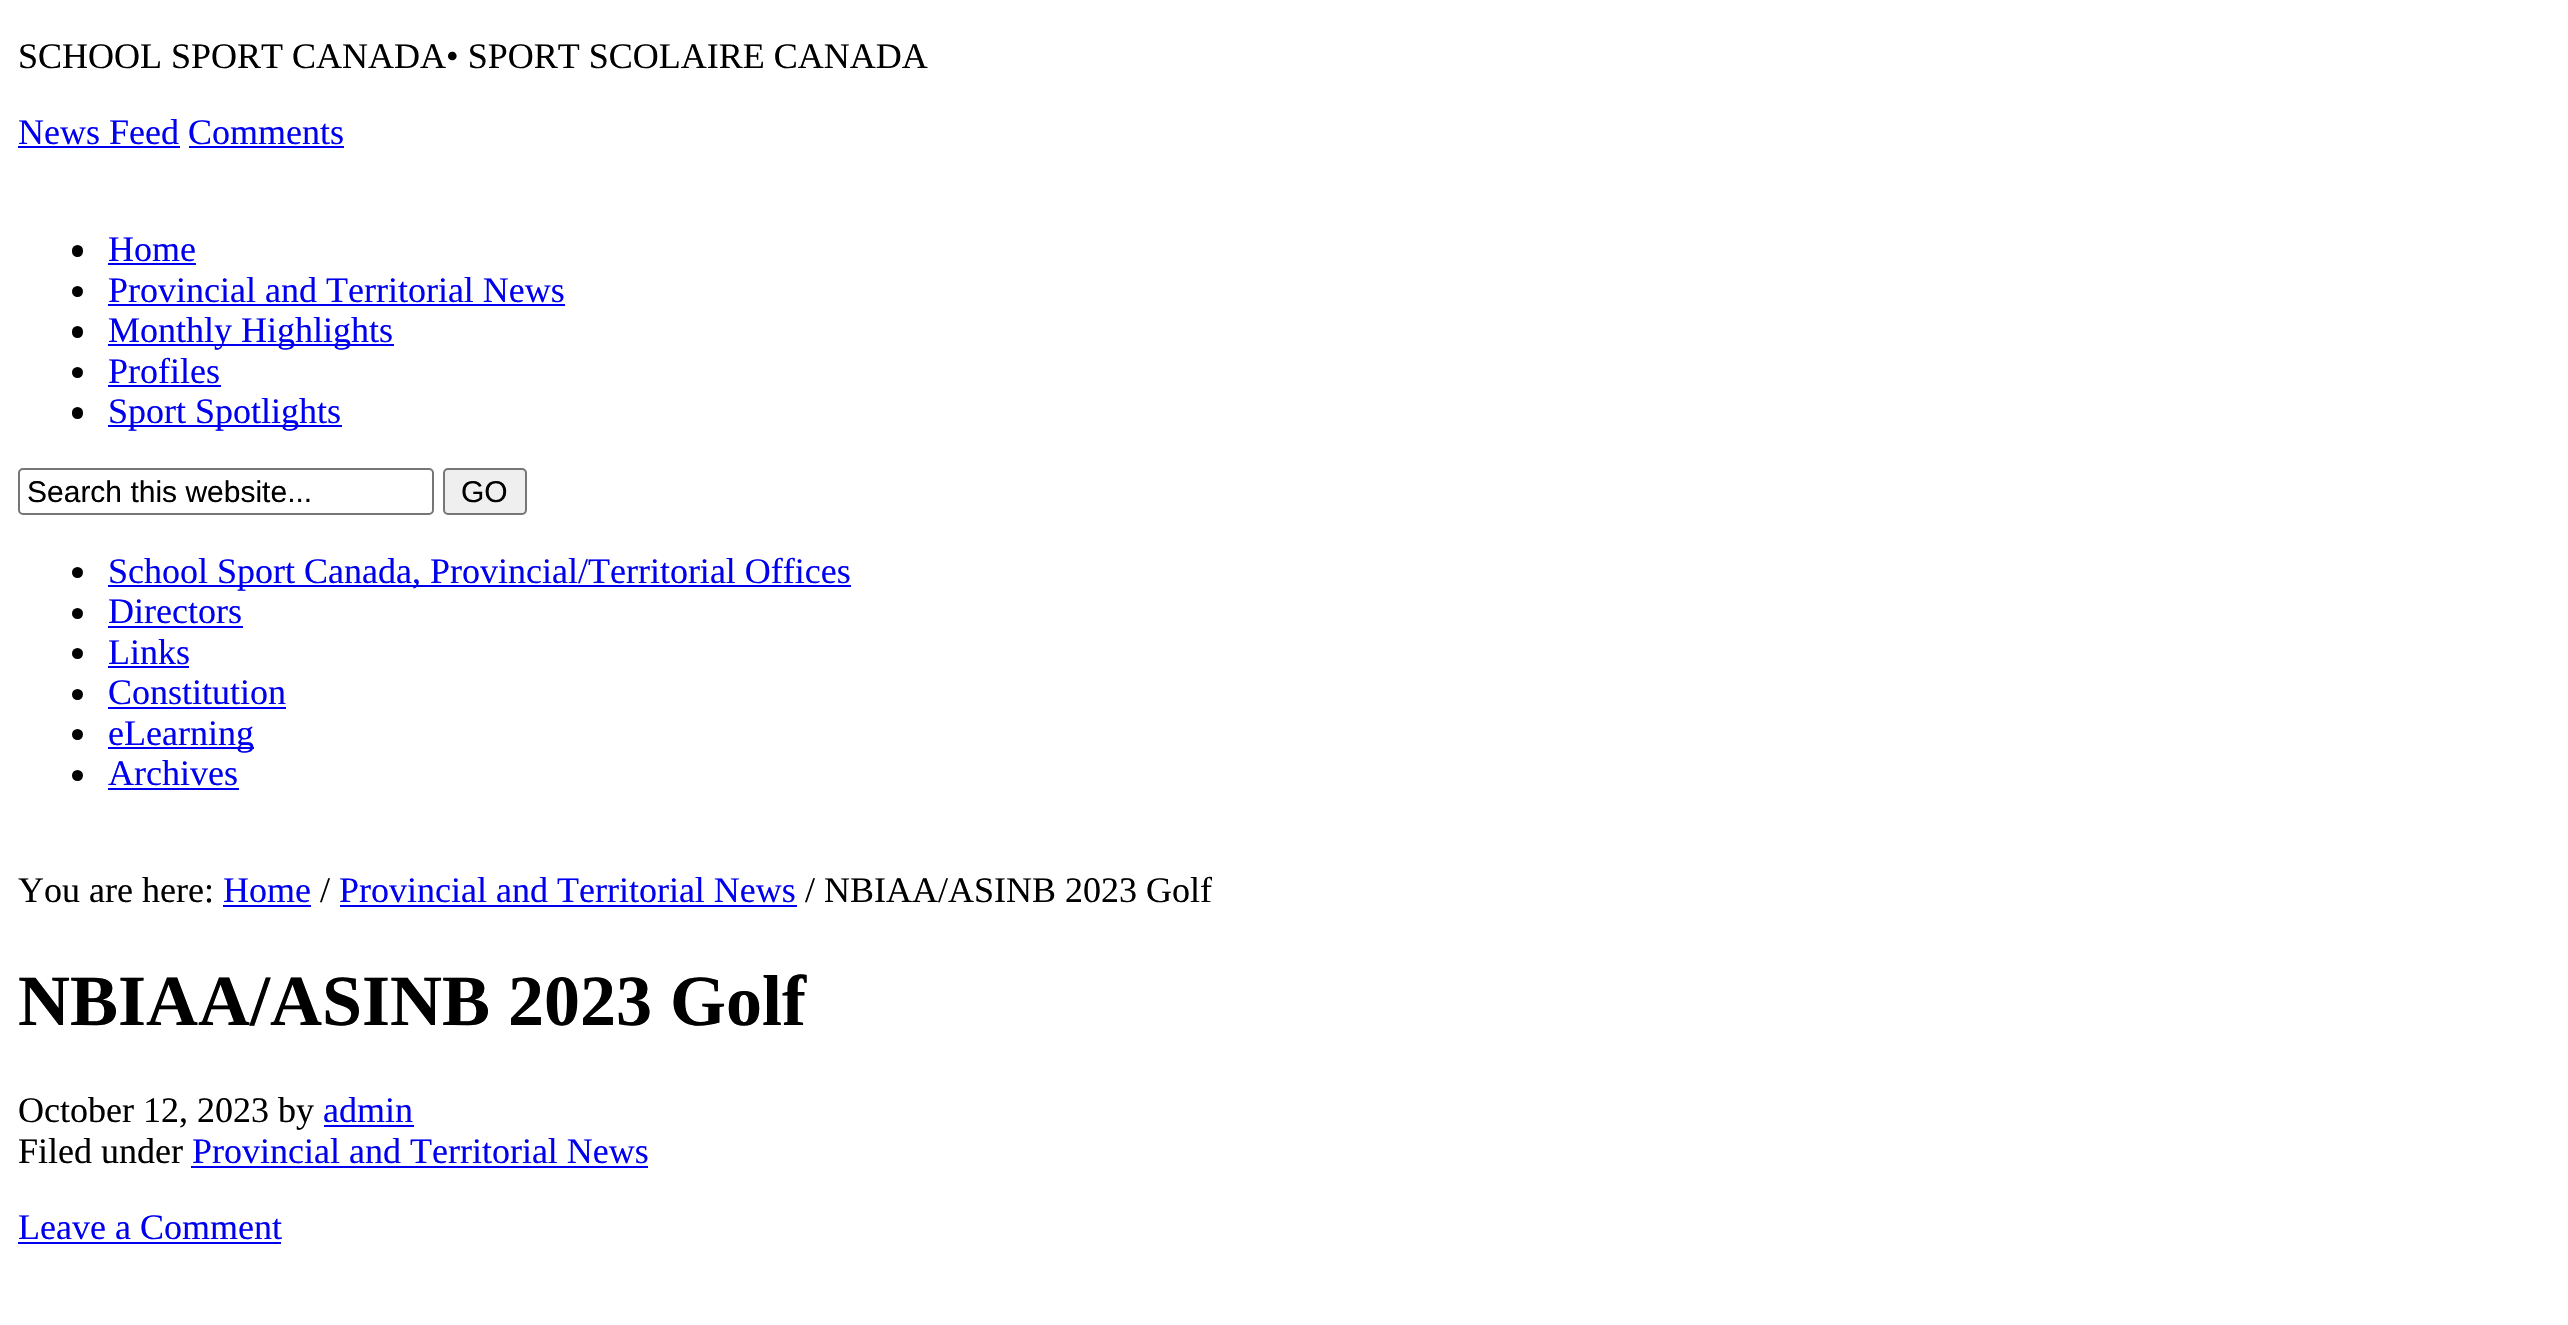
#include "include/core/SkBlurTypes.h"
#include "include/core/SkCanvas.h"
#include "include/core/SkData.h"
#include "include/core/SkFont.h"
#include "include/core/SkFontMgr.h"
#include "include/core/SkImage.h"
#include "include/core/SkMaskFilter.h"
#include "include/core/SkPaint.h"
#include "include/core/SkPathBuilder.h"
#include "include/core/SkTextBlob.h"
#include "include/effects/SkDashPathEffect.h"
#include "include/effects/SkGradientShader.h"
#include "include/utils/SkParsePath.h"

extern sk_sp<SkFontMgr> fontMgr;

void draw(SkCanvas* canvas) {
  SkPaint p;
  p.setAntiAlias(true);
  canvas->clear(SK_ColorWHITE);
  p.setColor(SkColorSetRGB(0, 0, 238));
  canvas->drawRect(SkRect::MakeLTRB(18, 146, 180, 148), p);
  canvas->drawRect(SkRect::MakeLTRB(189, 146, 344, 148), p);
  p.setColor(SK_ColorBLACK);
  canvas->drawRoundRect(SkRect::MakeLTRB(72, 245, 83, 257), 5.5f, 5.5f, p);
  p.setColor(SkColorSetRGB(0, 0, 238));
  canvas->drawRect(SkRect::MakeLTRB(108, 263, 196, 265), p);
  p.setColor(SK_ColorBLACK);
  canvas->drawCircle(77.5f, 291.5f, 5.5f, p);
  p.setColor(SkColorSetRGB(0, 0, 238));
  canvas->drawRect(SkRect::MakeLTRB(108, 304, 565, 306), p);
  p.setColor(SK_ColorBLACK);
  canvas->drawRoundRect(SkRect::MakeLTRB(72, 326, 83, 338), 5.5f, 5.5f, p);
  p.setColor(SkColorSetRGB(0, 0, 238));
  canvas->drawRect(SkRect::MakeLTRB(108, 344, 394, 346), p);
  p.setColor(SK_ColorBLACK);
  canvas->drawCircle(77.5f, 372.5f, 5.5f, p);
  p.setColor(SkColorSetRGB(0, 0, 238));
  canvas->drawRect(SkRect::MakeLTRB(108, 385, 221, 387), p);
  p.setColor(SK_ColorBLACK);
  canvas->drawRoundRect(SkRect::MakeLTRB(72, 407, 83, 419), 5.5f, 5.5f, p);
  p.setColor(SkColorSetRGB(0, 0, 238));
  canvas->drawRect(SkRect::MakeLTRB(108, 425, 342, 427), p);
  p.setStyle(SkPaint::kStroke_Style);
  p.setStrokeWidth(2);
  p.setColor(SkColorSetRGB(118, 118, 118));
  canvas->drawRoundRect(SkRect::MakeLTRB(19, 469, 433, 514), 4, 4, p);
  p.setStyle(SkPaint::kFill_Style);
  p.setColor(SkColorSetRGB(239, 239, 239));
  canvas->drawRoundRect(SkRect::MakeLTRB(444, 469, 526, 514), 4, 4, p);
  p.setStyle(SkPaint::kStroke_Style);
  p.setColor(SkColorSetRGB(118, 118, 118));
  canvas->drawRoundRect(SkRect::MakeLTRB(444, 469, 526, 514), 4, 4, p);
  p.setStyle(SkPaint::kFill_Style);
  p.setColor(SK_ColorBLACK);
  canvas->drawCircle(77.5f, 572.5f, 5.5f, p);
  p.setColor(SkColorSetRGB(0, 0, 238));
  canvas->drawRect(SkRect::MakeLTRB(108, 585, 851, 587), p);
  p.setColor(SK_ColorBLACK);
  canvas->drawCircle(77.5f, 613.5f, 5.5f, p);
  p.setColor(SkColorSetRGB(0, 0, 238));
  canvas->drawRect(SkRect::MakeLTRB(108, 626, 243, 628), p);
  p.setColor(SK_ColorBLACK);
  canvas->drawCircle(77.5f, 653.5f, 5.5f, p);
  p.setColor(SkColorSetRGB(0, 0, 238));
  canvas->drawRect(SkRect::MakeLTRB(108, 666, 189, 668), p);
  p.setColor(SK_ColorBLACK);
  canvas->drawCircle(77.5f, 694.5f, 5.5f, p);
  p.setColor(SkColorSetRGB(0, 0, 238));
  canvas->drawRect(SkRect::MakeLTRB(108, 707, 286, 709), p);
  p.setColor(SK_ColorBLACK);
  canvas->drawCircle(77.5f, 734.5f, 5.5f, p);
  p.setColor(SkColorSetRGB(0, 0, 238));
  canvas->drawRect(SkRect::MakeLTRB(108, 747, 254, 749), p);
  p.setColor(SK_ColorBLACK);
  canvas->drawCircle(77.5f, 775.5f, 5.5f, p);
  p.setColor(SkColorSetRGB(0, 0, 238));
  canvas->drawRect(SkRect::MakeLTRB(108, 788, 239, 790), p);
  canvas->drawRect(SkRect::MakeLTRB(223, 905, 311, 907), p);
  canvas->drawRect(SkRect::MakeLTRB(340, 905, 797, 907), p);
  canvas->drawRect(SkRect::MakeLTRB(324, 1125, 414, 1127), p);
  canvas->drawRect(SkRect::MakeLTRB(191, 1166, 648, 1168), p);
  canvas->drawRect(SkRect::MakeLTRB(18, 1242, 281, 1244), p);
  SkFont font1(fontMgr->matchFamilyStyle("Liberation Serif", SkFontStyle::Normal()), 36);
  font1.setSubpixel(true);
  p.setColor(SK_ColorBLACK);
  canvas->drawString("SCHOOL SPORT CANADA• SPORT SCOLAIRE CANADA", 18, 68, font1, p);
  p.setColor(SkColorSetRGB(0, 0, 238));
  canvas->drawString("News Feed Comments", 18, 144, font1, p);
  canvas->drawString("Home", 108, 261, font1, p);
  canvas->drawString("Provincial and Territorial News", 108, 302, font1, p);
  canvas->drawString("Monthly Highlights", 108, 342, font1, p);
  canvas->drawString("Profiles", 108, 383, font1, p);
  canvas->drawString("Sport Spotlights", 108, 423, font1, p);
  SkFont font2(fontMgr->matchFamilyStyle("Liberation Sans", SkFontStyle::Normal()), 30);
  font2.setSubpixel(true);
  p.setColor(SK_ColorBLACK);
  canvas->drawString("Search this website...", 27, 502, font2, p);
  canvas->drawString("GO", 461, 502, font2, p);
  p.setColor(SkColorSetRGB(0, 0, 238));
  canvas->drawString("School Sport Canada, Provincial/Territorial Offices", 108, 583, font1, p);
  canvas->drawString("Directors", 108, 623, font1, p);
  canvas->drawString("Links", 108, 664, font1, p);
  canvas->drawString("Constitution", 108, 704, font1, p);
  canvas->drawString("eLearning", 108, 745, font1, p);
  canvas->drawString("Archives", 108, 785, font1, p);
  p.setColor(SK_ColorBLACK);
  canvas->drawString("You are here:", 18, 902, font1, p);
  p.setColor(SkColorSetRGB(0, 0, 238));
  canvas->drawString("Home", 223, 902, font1, p);
  p.setColor(SK_ColorBLACK);
  canvas->drawString("/", 320, 902, font1, p);
  p.setColor(SkColorSetRGB(0, 0, 238));
  canvas->drawString("Provincial and Territorial News", 339, 902, font1, p);
  p.setColor(SK_ColorBLACK);
  canvas->drawString("/ NBIAA/ASINB 2023 Golf", 805, 902, font1, p);
  SkFont font3(fontMgr->matchFamilyStyle("Liberation Serif", SkFontStyle::Bold()), 72);
  font3.setSubpixel(true);
  canvas->drawString("NBIAA/ASINB 2023 Golf", 18, 1025, font3, p);
  canvas->drawString("October 12, 2023 by", 18, 1122, font1, p);
  p.setColor(SkColorSetRGB(0, 0, 238));
  canvas->drawString("admin", 323, 1122, font1, p);
  p.setColor(SK_ColorBLACK);
  canvas->drawString("Filed under", 18, 1163, font1, p);
  p.setColor(SkColorSetRGB(0, 0, 238));
  canvas->drawString("Provincial and Territorial News", 192, 1163, font1, p);
  canvas->drawString("Leave a Comment", 18, 1239, font1, p);
}
